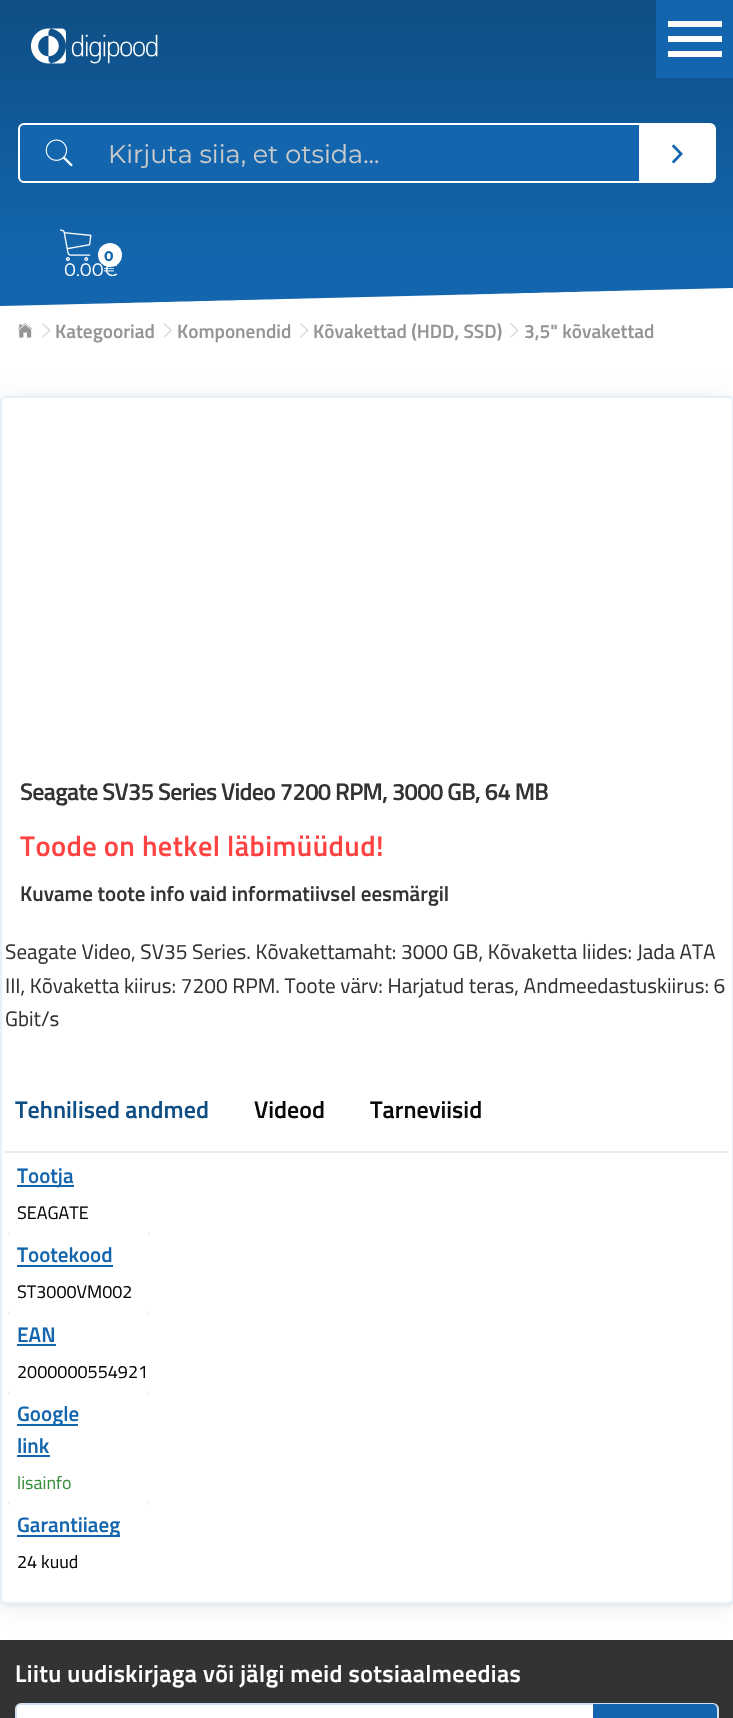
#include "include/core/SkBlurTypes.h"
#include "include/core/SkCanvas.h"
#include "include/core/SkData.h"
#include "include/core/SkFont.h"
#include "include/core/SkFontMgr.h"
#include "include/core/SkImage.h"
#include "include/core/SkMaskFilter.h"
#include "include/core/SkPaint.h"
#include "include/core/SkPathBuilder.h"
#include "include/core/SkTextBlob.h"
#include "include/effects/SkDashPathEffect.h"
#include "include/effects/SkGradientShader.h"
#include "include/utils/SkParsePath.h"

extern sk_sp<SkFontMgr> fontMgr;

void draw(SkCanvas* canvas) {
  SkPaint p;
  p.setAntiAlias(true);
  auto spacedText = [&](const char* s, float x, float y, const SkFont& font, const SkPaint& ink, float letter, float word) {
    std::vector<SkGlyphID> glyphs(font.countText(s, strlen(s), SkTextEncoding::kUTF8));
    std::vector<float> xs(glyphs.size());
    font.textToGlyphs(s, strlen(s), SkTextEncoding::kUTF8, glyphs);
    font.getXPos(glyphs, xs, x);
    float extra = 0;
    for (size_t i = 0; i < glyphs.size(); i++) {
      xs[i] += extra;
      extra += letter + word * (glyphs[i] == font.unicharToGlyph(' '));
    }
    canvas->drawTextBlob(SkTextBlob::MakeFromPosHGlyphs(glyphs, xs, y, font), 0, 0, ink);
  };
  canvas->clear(SK_ColorWHITE);
  {
    const SkColor colors[] = {SkColorSetRGB(14, 78, 132), SkColorSetRGB(19, 102, 174)};
    const float stops[] = {0, 0.9f};
    const SkPoint ends[] = {{367, 0}, {367, 288}};
    p.setShader(SkGradientShader::MakeLinear(ends, colors, stops, 2, SkTileMode::kClamp));
    p.setAlpha(255);
  }
  canvas->drawRect(SkRect::MakeLTRB(0, 0, 733, 288), p);
  p.setShader(nullptr);
  p.setColor(SkColorSetRGB(19, 102, 174));
  canvas->drawRect(SkRect::MakeLTRB(656, 0, 733, 78), p);
  p.setColor(SK_ColorWHITE);
  canvas->drawRect(SkRect::MakeLTRB(668, 36, 722, 42), p);
  canvas->drawRect(SkRect::MakeLTRB(668, 21, 722, 27), p);
  canvas->drawRect(SkRect::MakeLTRB(668, 51, 722, 57), p);
  canvas->drawImageRect(SkImages::DeferredFromEncodedData(SkData::MakeFromFileName("images/1.png")), SkRect::MakeLTRB(31, 28, 158, 64), SkSamplingOptions());
  p.setColor(SkColorSetRGB(19, 102, 174));
  canvas->drawRoundRect(SkRect::MakeLTRB(19, 124, 715, 182), 5, 5, p);
  p.setStyle(SkPaint::kStroke_Style);
  p.setStrokeWidth(2);
  p.setColor(SK_ColorWHITE);
  canvas->drawRoundRect(SkRect::MakeLTRB(19, 124, 715, 182), 5, 5, p);
  canvas->drawImageRect(SkImages::DeferredFromEncodedData(SkData::MakeFromFileName("images/2.png")), SkRect::MakeLTRB(45, 139, 73, 167), SkSamplingOptions());
  p.setStyle(SkPaint::kFill_Style);
  canvas->drawRect(SkRect::MakeLTRB(639, 125, 714, 182), p);
  canvas->drawImageRect(SkImages::DeferredFromEncodedData(SkData::MakeFromFileName("images/3.png")), SkRect::MakeLTRB(672, 144, 683, 164), SkSamplingOptions());
  canvas->drawImageRect(SkImages::DeferredFromEncodedData(SkData::MakeFromFileName("images/4.png")), SkRect::MakeLTRB(60, 229, 92, 261), SkSamplingOptions());
  canvas->drawCircle(110, 255, 12, p);
  canvas->drawImageRect(SkImages::DeferredFromEncodedData(SkData::MakeFromFileName("images/5.png")), SkRect::MakeLTRB(0, 288, 732, 306), SkSamplingOptions());
  canvas->drawImageRect(SkImages::DeferredFromEncodedData(SkData::MakeFromFileName("images/6.png")), SkRect::MakeLTRB(18, 323, 33, 338), SkSamplingOptions());
  canvas->drawImageRect(SkImages::DeferredFromEncodedData(SkData::MakeFromFileName("images/7.png")), SkRect::MakeLTRB(42, 323, 51, 338), SkSamplingOptions());
  canvas->drawImageRect(SkImages::DeferredFromEncodedData(SkData::MakeFromFileName("images/8.png")), SkRect::MakeLTRB(163, 323, 172, 338), SkSamplingOptions());
  canvas->drawImageRect(SkImages::DeferredFromEncodedData(SkData::MakeFromFileName("images/7.png")), SkRect::MakeLTRB(300, 323, 309, 338), SkSamplingOptions());
  canvas->drawImageRect(SkImages::DeferredFromEncodedData(SkData::MakeFromFileName("images/7.png")), SkRect::MakeLTRB(510, 323, 519, 338), SkSamplingOptions());
  p.setColor(SkColorSetARGB(18, 0, 0, 0));
  p.setMaskFilter(SkMaskFilter::MakeBlur(kNormal_SkBlurStyle, 10.5f));
  canvas->drawRoundRect(SkRect::MakeLTRB(0, 399, 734, 1607), 6, 6, p);
  p.setMaskFilter(nullptr);
  p.setColor(SkColorSetARGB(20, 0, 0, 0));
  p.setMaskFilter(SkMaskFilter::MakeBlur(kNormal_SkBlurStyle, 2));
  canvas->drawRoundRect(SkRect::MakeLTRB(0, 398, 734, 1605), 6, 6, p);
  p.setMaskFilter(nullptr);
  p.setColor(SK_ColorWHITE);
  canvas->drawRoundRect(SkRect::MakeLTRB(0, 396, 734, 1604), 6, 6, p);
  p.setStyle(SkPaint::kStroke_Style);
  p.setColor(SkColorSetARGB(26, 19, 102, 174));
  canvas->drawRoundRect(SkRect::MakeLTRB(1, 397, 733, 1603), 5, 5, p);
  p.setStyle(SkPaint::kFill_Style);
  p.setColor(SkColorSetRGB(227, 237, 245));
  canvas->drawRect(SkRect::MakeLTRB(5, 1151, 729, 1153), p);
  p.setStyle(SkPaint::kStroke_Style);
  p.setColor(SkColorSetRGB(242, 242, 242));
  canvas->drawRect(SkRect::MakeLTRB(9, 1156, 149, 1580), p);
  p.setStyle(SkPaint::kFill_Style);
  p.setColor(SK_ColorWHITE);
  canvas->drawRect(SkRect::MakeLTRB(8, 1155, 150, 1232), p);
  p.setColor(SkColorSetRGB(19, 102, 174));
  canvas->drawRect(SkRect::MakeLTRB(17, 1185, 74, 1187), p);
  p.setColor(SK_ColorWHITE);
  canvas->drawRect(SkRect::MakeLTRB(8, 1235, 150, 1311), p);
  p.setColor(SkColorSetRGB(19, 102, 174));
  canvas->drawRect(SkRect::MakeLTRB(17, 1265, 113, 1267), p);
  p.setColor(SK_ColorWHITE);
  canvas->drawRect(SkRect::MakeLTRB(8, 1314, 150, 1391), p);
  p.setColor(SkColorSetRGB(19, 102, 174));
  canvas->drawRect(SkRect::MakeLTRB(17, 1344, 56, 1346), p);
  p.setColor(SK_ColorWHITE);
  canvas->drawRect(SkRect::MakeLTRB(8, 1394, 150, 1502), p);
  p.setColor(SkColorSetRGB(19, 102, 174));
  canvas->drawRect(SkRect::MakeLTRB(17, 1424, 78, 1426), p);
  canvas->drawRect(SkRect::MakeLTRB(17, 1455, 50, 1457), p);
  p.setColor(SK_ColorWHITE);
  canvas->drawRect(SkRect::MakeLTRB(8, 1505, 150, 1581), p);
  p.setColor(SkColorSetRGB(19, 102, 174));
  canvas->drawRect(SkRect::MakeLTRB(17, 1535, 120, 1537), p);
  p.setColor(SkColorSetRGB(51, 51, 51));
  canvas->drawRect(SkRect::MakeLTRB(0, 1640, 733, 1718), p);
  p.setColor(SK_ColorWHITE);
  canvas->drawRoundRect(SkRect::MakeLTRB(16, 1704, 718, 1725), 5, 5, p);
  p.setStyle(SkPaint::kStroke_Style);
  p.setColor(SkColorSetRGB(208, 224, 239));
  canvas->drawRoundRect(SkRect::MakeLTRB(16, 1704, 718, 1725), 5, 5, p);
  p.setStyle(SkPaint::kFill_Style);
  p.setColor(SkColorSetRGB(19, 102, 174));
  canvas->drawPath(SkPathBuilder().moveTo(593, 1704).lineTo(712, 1704).cubicTo(715, 1704, 717, 1706, 717, 1709).lineTo(717, 1718).cubicTo(717, 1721, 715, 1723, 712, 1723).lineTo(593, 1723).close().detach(), p);
  SkFont font1(fontMgr->matchFamilyStyle("Montserrat", SkFontStyle::Normal()), 25.5f);
  font1.setSubpixel(true);
  p.setColor(SkColorSetRGB(202, 202, 202));
  canvas->drawString("Kirjuta siia, et otsida...", 108, 163, font1, p);
  SkFont font2(fontMgr->matchFamilyStyle("Montserrat", SkFontStyle::Bold()), 14);
  font2.setSubpixel(true);
  p.setColor(SkColorSetRGB(19, 102, 174));
  canvas->drawString("0", 104, 261, font2, p);
  SkFont font3(fontMgr->matchFamilyStyle("Montserrat", SkFontStyle::Normal()), 18);
  font3.setSubpixel(true);
  p.setColor(SK_ColorWHITE);
  canvas->drawString("0.00€", 64, 276, font3, p);
  SkFont font4(fontMgr->matchFamilyStyle("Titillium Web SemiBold", SkFontStyle(600, SkFontStyle::kNormal_Width, SkFontStyle::kUpright_Slant)), 19.25f);
  font4.setSubpixel(true);
  p.setColor(SkColorSetRGB(149, 149, 149));
  canvas->drawString("Kategooriad", 55, 338, font4, p);
  canvas->drawString("Komponendid", 177, 338, font4, p);
  canvas->drawString("Kõvakettad (HDD, SSD)", 313, 338, font4, p);
  canvas->drawString("3,5\" kõvakettad", 524, 338, font4, p);
  SkFont font5(fontMgr->matchFamilyStyle("Titillium Web SemiBold", SkFontStyle(600, SkFontStyle::kNormal_Width, SkFontStyle::kUpright_Slant)), 24);
  font5.setSubpixel(true);
  p.setColor(SkColorSetRGB(51, 51, 51));
  spacedText("Seagate SV35 Series Video 7200 RPM, 3000 GB, 64 MB", 20, 800, font5, p, -0.75f, 0);
  SkFont font6(fontMgr->matchFamilyStyle("Titillium Web SemiBold", SkFontStyle(600, SkFontStyle::kNormal_Width, SkFontStyle::kUpright_Slant)), 28.5f);
  font6.setSubpixel(true);
  p.setColor(SkColorSetRGB(255, 67, 67));
  spacedText("Toode on hetkel läbimüüdud!", 20, 856, font6, p, 0.4f, 0);
  SkFont font7(fontMgr->matchFamilyStyle("Titillium Web SemiBold", SkFontStyle(600, SkFontStyle::kNormal_Width, SkFontStyle::kUpright_Slant)), 21);
  font7.setSubpixel(true);
  p.setColor(SkColorSetRGB(51, 51, 51));
  canvas->drawString("Kuvame toote info vaid informatiivsel eesmärgil", 20, 901, font7, p);
  SkFont font8(fontMgr->matchFamilyStyle("Titillium Web", SkFontStyle::Normal()), 21);
  font8.setSubpixel(true);
  canvas->drawString("Seagate Video, SV35 Series. Kõvakettamaht: 3000 GB, Kõvaketta liides: Jada ATA", 5, 959, font8, p);
  canvas->drawString("III, Kõvaketta kiirus: 7200 RPM. Toote värv: Harjatud teras, Andmeedastuskiirus: 6", 5, 993, font8, p);
  canvas->drawString("Gbit/s", 5, 1026, font8, p);
  p.setColor(SkColorSetRGB(14, 78, 132));
  canvas->drawString("Tehnilised andmed", 15, 1118, font5, p);
  p.setColor(SkColorSetRGB(10, 10, 10));
  canvas->drawString("Videod", 254, 1118, font5, p);
  canvas->drawString("Tarneviisid", 370, 1118, font5, p);
  p.setColor(SkColorSetRGB(19, 102, 174));
  canvas->drawString("Tootja", 17, 1183, font7, p);
  SkFont font9(fontMgr->matchFamilyStyle("Titillium Web", SkFontStyle::Normal()), 18);
  font9.setSubpixel(true);
  p.setColor(SkColorSetRGB(10, 10, 10));
  canvas->drawString("SEAGATE", 17, 1219, font9, p);
  p.setColor(SkColorSetRGB(19, 102, 174));
  canvas->drawString("Tootekood", 17, 1262, font7, p);
  p.setColor(SkColorSetRGB(10, 10, 10));
  canvas->drawString("ST3000VM002", 17, 1298, font9, p);
  p.setColor(SkColorSetRGB(19, 102, 174));
  canvas->drawString("EAN", 17, 1342, font7, p);
  p.setColor(SkColorSetRGB(10, 10, 10));
  canvas->drawString("2000000554921", 17, 1378, font9, p);
  p.setColor(SkColorSetRGB(19, 102, 174));
  canvas->drawString("Google", 17, 1421, font7, p);
  canvas->drawString("link", 17, 1453, font7, p);
  p.setColor(SkColorSetRGB(56, 142, 60));
  canvas->drawString("lisainfo", 17, 1489, font9, p);
  p.setColor(SkColorSetRGB(19, 102, 174));
  canvas->drawString("Garantiiaeg", 17, 1532, font7, p);
  p.setColor(SkColorSetRGB(10, 10, 10));
  canvas->drawString("24 kuud", 17, 1568, font9, p);
  p.setColor(SK_ColorWHITE);
  spacedText("Liitu uudiskirjaga või jälgi meid sotsiaalmeedias", 15, 1682, font5, p, 0.4f, 0);
}
